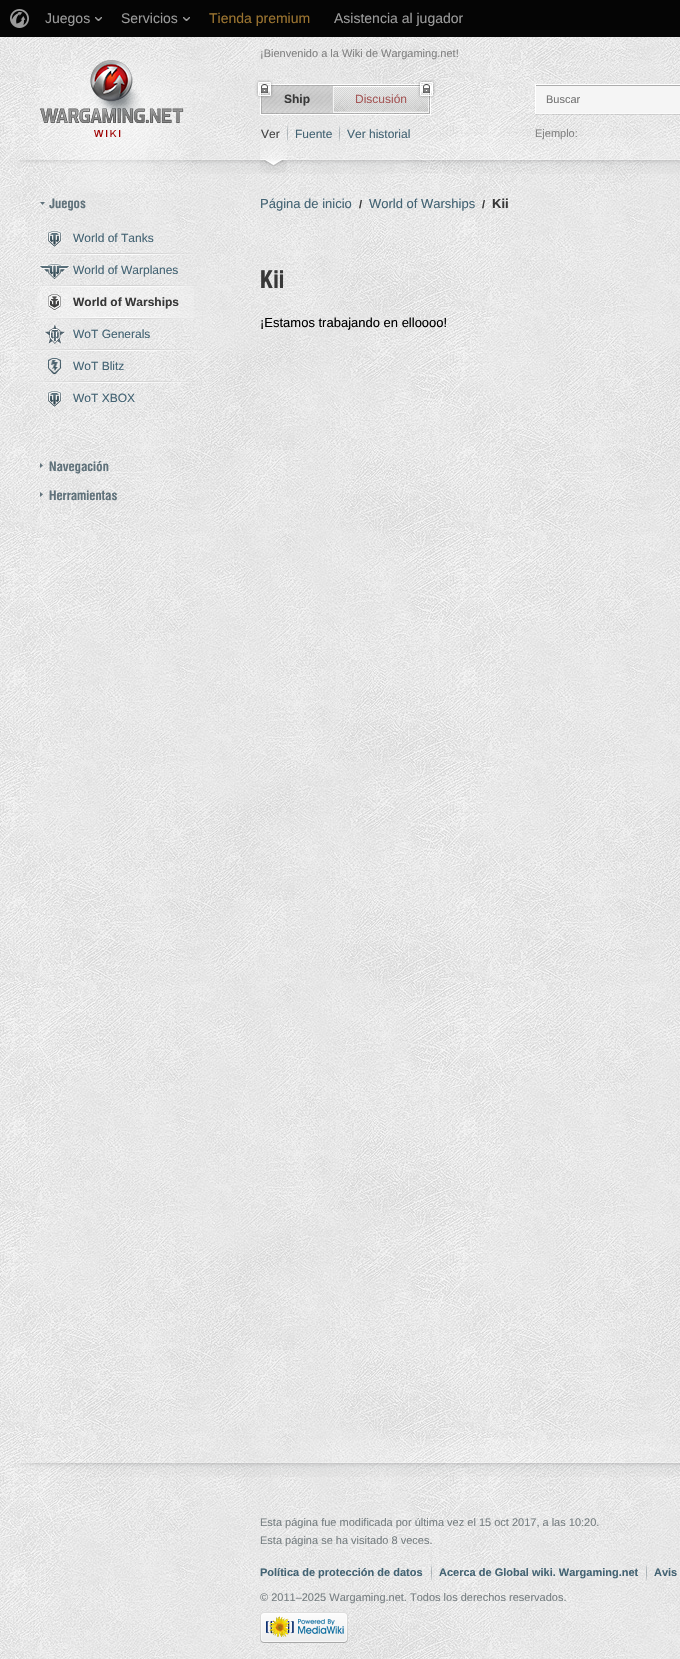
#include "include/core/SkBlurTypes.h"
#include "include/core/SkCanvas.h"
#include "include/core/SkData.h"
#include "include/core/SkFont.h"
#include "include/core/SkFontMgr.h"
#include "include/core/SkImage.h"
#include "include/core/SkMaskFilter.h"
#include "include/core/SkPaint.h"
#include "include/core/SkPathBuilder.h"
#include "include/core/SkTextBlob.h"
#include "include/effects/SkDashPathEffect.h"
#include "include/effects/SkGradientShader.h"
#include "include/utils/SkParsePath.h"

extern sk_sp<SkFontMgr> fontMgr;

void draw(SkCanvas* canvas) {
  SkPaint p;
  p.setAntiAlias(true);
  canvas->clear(SK_ColorWHITE);
  canvas->drawImageRect(SkImages::DeferredFromEncodedData(SkData::MakeFromFileName("images/1.png")), SkRect::MakeLTRB(0, 37, 680, 1659), SkSamplingOptions());
  p.setColor(SkColorSetRGB(5, 5, 5));
  canvas->drawRect(SkRect::MakeLTRB(0, 0, 680, 37), p);
  p.setStyle(SkPaint::kStroke_Style);
  p.setStrokeWidth(1);
  p.setColor(SkColorSetARGB(26, 255, 255, 255));
  canvas->drawRect(SkRect::MakeLTRB(-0.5f, -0.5f, 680.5f, 37.5f), p);
  canvas->drawImageRect(SkImages::DeferredFromEncodedData(SkData::MakeFromFileName("images/2.png")), SkRect::MakeLTRB(10, 9, 29, 28), SkSamplingOptions());
  canvas->drawImageRect(SkImages::DeferredFromEncodedData(SkData::MakeFromFileName("images/3.png")), SkRect::MakeLTRB(95, 17, 102, 21), SkSamplingOptions());
  canvas->drawImageRect(SkImages::DeferredFromEncodedData(SkData::MakeFromFileName("images/3.png")), SkRect::MakeLTRB(183, 17, 190, 21), SkSamplingOptions());
  canvas->drawImageRect(SkImages::DeferredFromEncodedData(SkData::MakeFromFileName("images/14.png")), SkRect::MakeLTRB(20, 136, 631, 174), SkSamplingOptions());
  canvas->drawImageRect(SkImages::DeferredFromEncodedData(SkData::MakeFromFileName("images/4.png")), SkRect::MakeLTRB(39, 47, 191, 193), SkSamplingOptions());
  p.setColor(SK_ColorWHITE);
  canvas->drawRect(SkRect::MakeLTRB(260.5f, 84.5f, 430.5f, 114.5f), p);
  p.setColor(SkColorSetARGB(64, 0, 0, 0));
  canvas->drawRect(SkRect::MakeLTRB(261.5f, 85.5f, 429.5f, 113.5f), p);
  p.setStyle(SkPaint::kFill_Style);
  p.setColor(SkColorSetRGB(206, 206, 206));
  canvas->drawRect(SkRect::MakeLTRB(332, 86, 333, 113), p);
  canvas->drawImageRect(SkImages::DeferredFromEncodedData(SkData::MakeFromFileName("images/6.png")), SkRect::MakeLTRB(262, 86, 300, 113), SkSamplingOptions());
  canvas->save();
  canvas->clipPath(SkPathBuilder(SkPathFillType::kEvenOdd).moveTo(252, 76).lineTo(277, 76).lineTo(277, 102).lineTo(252, 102).close().moveTo(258, 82).lineTo(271, 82).lineTo(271, 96).lineTo(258, 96).close().detach(), true);
  p.setColor(SkColorSetARGB(102, 21, 21, 21));
  p.setMaskFilter(SkMaskFilter::MakeBlur(kNormal_SkBlurStyle, 1.5f));
  canvas->drawRect(SkRect::MakeLTRB(258, 82, 271, 96), p);
  p.setMaskFilter(nullptr);
  canvas->restore();
  canvas->drawImageRect(SkImages::DeferredFromEncodedData(SkData::MakeFromFileName("images/5.png")), SkRect::MakeLTRB(258, 82, 271, 96), SkSamplingOptions());
  canvas->drawImageRect(SkImages::DeferredFromEncodedData(SkData::MakeFromFileName("images/7.png")), SkRect::MakeLTRB(291, 86, 332, 113), SkSamplingOptions());
  canvas->drawImageRect(SkImages::DeferredFromEncodedData(SkData::MakeFromFileName("images/8.png")), SkRect::MakeLTRB(333, 86, 397, 113), SkSamplingOptions());
  canvas->drawImageRect(SkImages::DeferredFromEncodedData(SkData::MakeFromFileName("images/9.png")), SkRect::MakeLTRB(386, 86, 429, 113), SkSamplingOptions());
  canvas->save();
  canvas->clipPath(SkPathBuilder(SkPathFillType::kEvenOdd).moveTo(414, 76).lineTo(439, 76).lineTo(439, 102).lineTo(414, 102).close().moveTo(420, 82).lineTo(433, 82).lineTo(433, 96).lineTo(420, 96).close().detach(), true);
  p.setMaskFilter(SkMaskFilter::MakeBlur(kNormal_SkBlurStyle, 1.5f));
  canvas->drawRect(SkRect::MakeLTRB(420, 82, 433, 96), p);
  p.setMaskFilter(nullptr);
  canvas->restore();
  canvas->drawImageRect(SkImages::DeferredFromEncodedData(SkData::MakeFromFileName("images/10.png")), SkRect::MakeLTRB(420, 82, 433, 96), SkSamplingOptions());
  canvas->drawImageRect(SkImages::DeferredFromEncodedData(SkData::MakeFromFileName("images/12.png")), SkRect::MakeLTRB(287, 125, 288, 142), SkSamplingOptions());
  canvas->drawImageRect(SkImages::DeferredFromEncodedData(SkData::MakeFromFileName("images/13.png")), SkRect::MakeLTRB(339, 125, 340, 142), SkSamplingOptions());
  p.setColor(SkColorSetARGB(26, 0, 0, 0));
  canvas->drawRect(SkRect::MakeLTRB(535, 114, 680, 115), p);
  p.setColor(SkColorSetRGB(245, 245, 245));
  canvas->drawRect(SkRect::MakeLTRB(536, 86, 680, 113), p);
  p.setColor(SkColorSetRGB(172, 172, 172));
  canvas->drawRect(SkRect::MakeLTRB(536, 85, 680, 86), p);
  p.setColor(SK_ColorWHITE);
  canvas->drawRect(SkRect::MakeLTRB(535, 84, 680, 85), p);
  p.setColor(SkColorSetRGB(250, 250, 250));
  canvas->drawRect(SkRect::MakeLTRB(535, 113, 680, 114), p);
  p.setColor(SK_ColorWHITE);
  canvas->drawRect(SkRect::MakeLTRB(535, 84, 536, 114), p);
  canvas->drawImageRect(SkImages::DeferredFromEncodedData(SkData::MakeFromFileName("images/15.png")), SkRect::MakeLTRB(631, 139, 680, 174), SkSamplingOptions());
  canvas->drawImageRect(SkImages::DeferredFromEncodedData(SkData::MakeFromFileName("images/16.png")), SkRect::MakeLTRB(40, 202, 45, 205), SkSamplingOptions());
  canvas->drawImageRect(SkImages::DeferredFromEncodedData(SkData::MakeFromFileName("images/17.png")), SkRect::MakeLTRB(47, 230, 62, 248), SkSamplingOptions());
  canvas->drawImageRect(SkImages::DeferredFromEncodedData(SkData::MakeFromFileName("images/18.png")), SkRect::MakeLTRB(30, 253, 199, 255), SkSamplingOptions());
  canvas->drawImageRect(SkImages::DeferredFromEncodedData(SkData::MakeFromFileName("images/19.png")), SkRect::MakeLTRB(39, 263, 70, 280), SkSamplingOptions());
  canvas->drawImageRect(SkImages::DeferredFromEncodedData(SkData::MakeFromFileName("images/24.png")), SkRect::MakeLTRB(28, 317, 198, 319), SkSamplingOptions());
  canvas->drawImageRect(SkImages::DeferredFromEncodedData(SkData::MakeFromFileName("images/20.png")), SkRect::MakeLTRB(34, 285, 194, 319), SkSamplingOptions());
  canvas->drawImageRect(SkImages::DeferredFromEncodedData(SkData::MakeFromFileName("images/21.png")), SkRect::MakeLTRB(29, 285, 198, 287), SkSamplingOptions());
  canvas->drawImageRect(SkImages::DeferredFromEncodedData(SkData::MakeFromFileName("images/22.png")), SkRect::MakeLTRB(31, 317, 198, 319), SkSamplingOptions());
  canvas->drawImageRect(SkImages::DeferredFromEncodedData(SkData::MakeFromFileName("images/23.png")), SkRect::MakeLTRB(47, 293, 62, 311), SkSamplingOptions());
  canvas->drawImageRect(SkImages::DeferredFromEncodedData(SkData::MakeFromFileName("images/25.png")), SkRect::MakeLTRB(44, 325, 65, 344), SkSamplingOptions());
  canvas->drawImageRect(SkImages::DeferredFromEncodedData(SkData::MakeFromFileName("images/26.png")), SkRect::MakeLTRB(31, 349, 201, 351), SkSamplingOptions());
  canvas->drawImageRect(SkImages::DeferredFromEncodedData(SkData::MakeFromFileName("images/27.png")), SkRect::MakeLTRB(48, 357, 61, 374), SkSamplingOptions());
  canvas->drawImageRect(SkImages::DeferredFromEncodedData(SkData::MakeFromFileName("images/28.png")), SkRect::MakeLTRB(33, 381, 203, 383), SkSamplingOptions());
  canvas->drawImageRect(SkImages::DeferredFromEncodedData(SkData::MakeFromFileName("images/29.png")), SkRect::MakeLTRB(47, 390, 62, 408), SkSamplingOptions());
  canvas->drawImageRect(SkImages::DeferredFromEncodedData(SkData::MakeFromFileName("images/30.png")), SkRect::MakeLTRB(40, 463, 43, 468), SkSamplingOptions());
  canvas->drawImageRect(SkImages::DeferredFromEncodedData(SkData::MakeFromFileName("images/31.png")), SkRect::MakeLTRB(40, 492, 43, 497), SkSamplingOptions());
  canvas->drawImageRect(SkImages::DeferredFromEncodedData(SkData::MakeFromFileName("images/32.png")), SkRect::MakeLTRB(20, 1439, 631, 1477), SkSamplingOptions());
  canvas->drawImageRect(SkImages::DeferredFromEncodedData(SkData::MakeFromFileName("images/33.png")), SkRect::MakeLTRB(631, 1444, 680, 1477), SkSamplingOptions());
  canvas->drawImageRect(SkImages::DeferredFromEncodedData(SkData::MakeFromFileName("images/34.png")), SkRect::MakeLTRB(431, 1564, 432, 1581), SkSamplingOptions());
  canvas->drawImageRect(SkImages::DeferredFromEncodedData(SkData::MakeFromFileName("images/35.png")), SkRect::MakeLTRB(646, 1564, 647, 1581), SkSamplingOptions());
  canvas->drawImageRect(SkImages::DeferredFromEncodedData(SkData::MakeFromFileName("images/36.png")), SkRect::MakeLTRB(260, 1612, 348, 1643), SkSamplingOptions());
  SkFont font1(fontMgr->matchFamilyStyle("Liberation Sans", SkFontStyle::Normal()), 14);
  font1.setSubpixel(true);
  p.setColor(SkColorSetRGB(155, 155, 155));
  canvas->drawString("Juegos", 45, 23, font1, p);
  canvas->drawString("Servicios", 121, 23, font1, p);
  p.setColor(SkColorSetRGB(155, 116, 48));
  canvas->drawString("Tienda premium", 209, 23, font1, p);
  p.setColor(SkColorSetRGB(155, 155, 155));
  canvas->drawString("Asistencia al jugador", 334, 23, font1, p);
  SkFont font2(fontMgr->matchFamilyStyle("Liberation Sans", SkFontStyle::Normal()), 11);
  font2.setSubpixel(true);
  p.setColor(SkColorSetRGB(130, 130, 130));
  canvas->drawString("¡Bienvenido a la Wiki de Wargaming.net!", 260, 57, font2, p);
  SkFont font3(fontMgr->matchFamilyStyle("Liberation Sans", SkFontStyle::Bold()), 12);
  font3.setSubpixel(true);
  p.setColor(SkColorSetRGB(56, 56, 56));
  canvas->drawString("Ship", 284, 103, font3, p);
  SkFont font4(fontMgr->matchFamilyStyle("Liberation Sans", SkFontStyle::Normal()), 12);
  font4.setSubpixel(true);
  p.setColor(SkColorSetRGB(165, 88, 88));
  canvas->drawString("Discusión", 355, 103, font4, p);
  p.setColor(SkColorSetRGB(56, 56, 56));
  canvas->drawString("Ver", 261, 138, font4, p);
  canvas->drawImageRect(SkImages::DeferredFromEncodedData(SkData::MakeFromFileName("images/11.png")), SkRect::MakeLTRB(260, 130, 287, 173), SkSamplingOptions());
  p.setColor(SkColorSetRGB(67, 99, 115));
  canvas->drawString("Fuente", 295, 138, font4, p);
  canvas->drawString("Ver historial", 347, 138, font4, p);
  p.setColor(SkColorSetRGB(117, 117, 117));
  canvas->drawString("Buscar", 546, 103, font2, p);
  p.setColor(SkColorSetRGB(130, 130, 130));
  canvas->drawString("Ejemplo:", 535, 137, font2, p);
  SkFont font5(fontMgr->matchFamilyStyle("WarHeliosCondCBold", SkFontStyle::Bold()), 14);
  font5.setSubpixel(true);
  p.setColor(SkColorSetRGB(96, 114, 123));
  canvas->drawString("Juegos", 49, 208, font5, p);
  p.setColor(SkColorSetRGB(67, 99, 115));
  canvas->drawString("World of Tanks", 73, 242, font4, p);
  canvas->drawString("World of Warplanes", 73, 274, font4, p);
  p.setColor(SkColorSetRGB(56, 56, 56));
  canvas->drawString("World of Warships", 73, 306, font3, p);
  p.setColor(SkColorSetRGB(67, 99, 115));
  canvas->drawString("WoT Generals", 73, 338, font4, p);
  canvas->drawString("WoT Blitz", 73, 370, font4, p);
  canvas->drawString("WoT XBOX", 73, 402, font4, p);
  p.setColor(SkColorSetRGB(96, 114, 123));
  canvas->drawString("Navegación", 49, 471, font5, p);
  canvas->drawString("Herramientas", 49, 500, font5, p);
  SkFont font6(fontMgr->matchFamilyStyle("Liberation Sans", SkFontStyle::Normal()), 13);
  font6.setSubpixel(true);
  p.setColor(SkColorSetRGB(67, 99, 115));
  canvas->drawString("Página de inicio", 260, 208, font6, p);
  SkFont font7(fontMgr->matchFamilyStyle("Liberation Sans", SkFontStyle::Bold()), 11);
  font7.setSubpixel(true);
  p.setColor(SkColorSetRGB(56, 56, 56));
  canvas->drawString("/", 359, 208, font7, p);
  p.setColor(SkColorSetRGB(67, 99, 115));
  canvas->drawString("World of Warships", 369, 208, font6, p);
  p.setColor(SkColorSetRGB(56, 56, 56));
  canvas->drawString("/", 482, 208, font7, p);
  SkFont font8(fontMgr->matchFamilyStyle("Liberation Sans", SkFontStyle::Bold()), 13);
  font8.setSubpixel(true);
  canvas->drawString("Kii", 492, 208, font8, p);
  SkFont font9(fontMgr->matchFamilyStyle("WarHeliosCondCBold", SkFontStyle::Bold()), 26);
  font9.setSubpixel(true);
  canvas->drawString("Kii", 260, 288, font9, p);
  p.setColor(SK_ColorBLACK);
  canvas->drawString("¡Estamos trabajando en elloooo!", 260, 327, font6, p);
  p.setColor(SkColorSetRGB(119, 127, 130));
  canvas->drawString("Esta página fue modificada por última vez el 15 oct 2017, a las 10:20.", 260, 1526, font2, p);
  canvas->drawString("Esta página se ha visitado 8 veces.", 260, 1544, font2, p);
  p.setColor(SkColorSetRGB(67, 99, 115));
  canvas->drawString("Política de protección de datos", 260, 1576, font7, p);
  canvas->drawString("Acerca de Global wiki. Wargaming.net", 439, 1576, font7, p);
  canvas->drawString("Avis", 654, 1576, font7, p);
  p.setColor(SkColorSetRGB(119, 127, 130));
  canvas->drawString("© 2011–2025 Wargaming.net. Todos los derechos reservados.", 260, 1601, font2, p);
}
